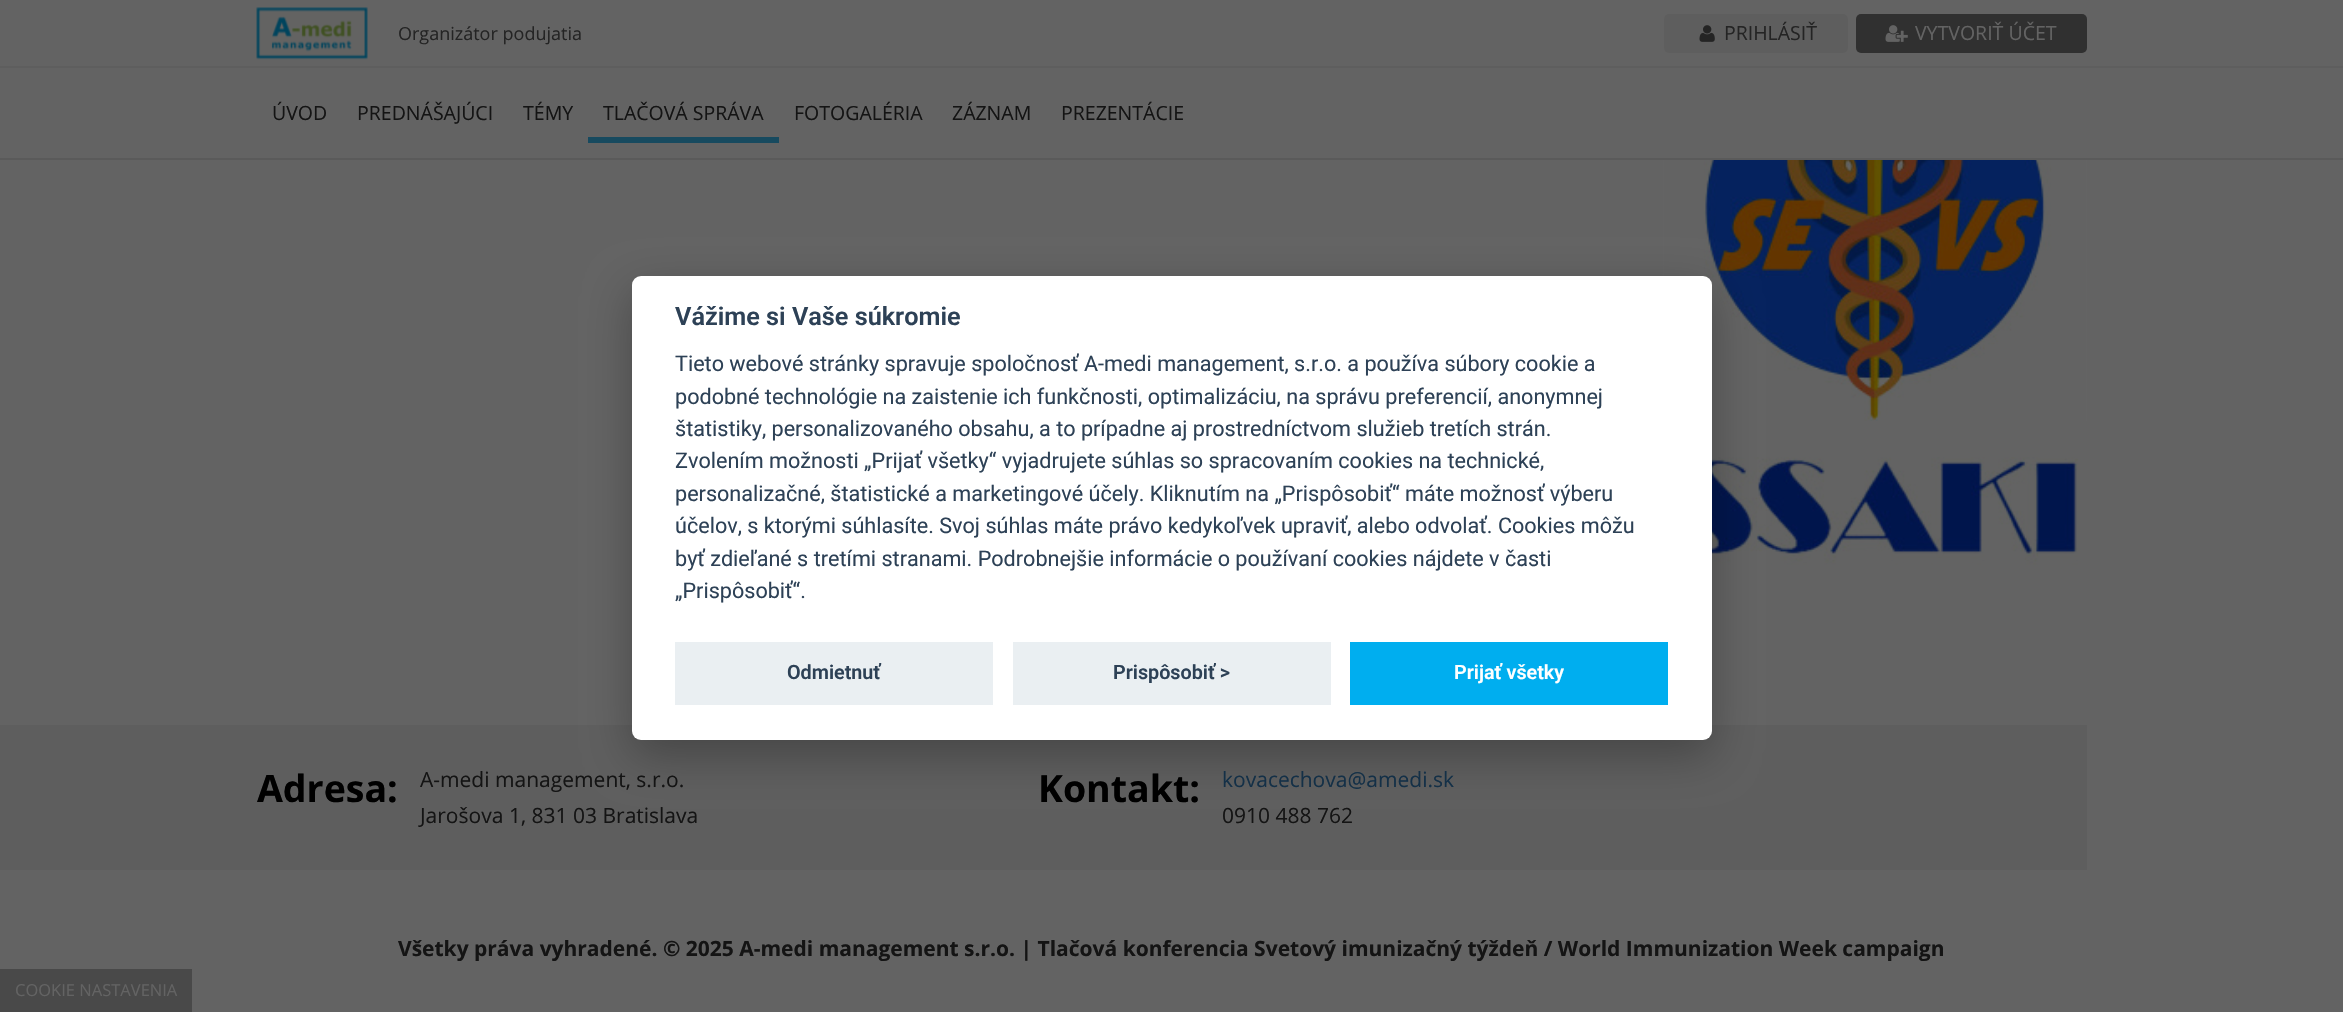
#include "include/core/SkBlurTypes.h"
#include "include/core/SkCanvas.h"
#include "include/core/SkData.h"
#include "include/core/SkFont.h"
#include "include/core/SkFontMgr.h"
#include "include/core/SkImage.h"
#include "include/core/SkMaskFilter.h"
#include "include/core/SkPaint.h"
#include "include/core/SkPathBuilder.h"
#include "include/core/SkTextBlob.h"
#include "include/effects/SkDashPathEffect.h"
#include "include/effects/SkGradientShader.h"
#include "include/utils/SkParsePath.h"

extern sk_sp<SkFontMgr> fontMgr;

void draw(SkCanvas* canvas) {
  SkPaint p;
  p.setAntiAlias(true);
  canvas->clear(SkColorSetRGB(99, 99, 99));
  p.setColor(SkColorSetRGB(90, 90, 90));
  canvas->drawRect(SkRect::MakeLTRB(0, 158, 2343, 160), p);
  p.setColor(SkColorSetRGB(94, 94, 94));
  canvas->drawRect(SkRect::MakeLTRB(0, 66, 2343, 68), p);
  canvas->drawImageRect(SkImages::DeferredFromEncodedData(SkData::MakeFromFileName("images/1.png")), SkRect::MakeLTRB(256, 7, 368, 60), SkSamplingOptions());
  canvas->drawRoundRect(SkRect::MakeLTRB(1664, 14, 1848, 53), 5, 5, p);
  canvas->drawImageRect(SkImages::DeferredFromEncodedData(SkData::MakeFromFileName("images/2.png")), SkRect::MakeLTRB(1699, 25, 1715, 42), SkSamplingOptions());
  p.setColor(SkColorSetRGB(48, 48, 48));
  canvas->drawRoundRect(SkRect::MakeLTRB(1856, 14, 2087, 53), 5, 5, p);
  canvas->drawImageRect(SkImages::DeferredFromEncodedData(SkData::MakeFromFileName("images/3.png")), SkRect::MakeLTRB(1885, 25, 1908, 42), SkSamplingOptions());
  p.setColor(SkColorSetRGB(23, 74, 95));
  canvas->drawRect(SkRect::MakeLTRB(588, 137, 779, 143), p);
  canvas->drawImageRect(SkImages::DeferredFromEncodedData(SkData::MakeFromFileName("images/4.png")), SkRect::MakeLTRB(1663, 160, 2087, 421), SkSamplingOptions());
  canvas->drawImageRect(SkImages::DeferredFromEncodedData(SkData::MakeFromFileName("images/5.png")), SkRect::MakeLTRB(1712, 457, 2079, 565), SkSamplingOptions());
  p.setColor(SkColorSetRGB(94, 94, 94));
  canvas->drawRect(SkRect::MakeLTRB(0, 725, 2087, 870), p);
  p.setColor(SkColorSetARGB(71, 2, 2, 3));
  p.setMaskFilter(SkMaskFilter::MakeBlur(kNormal_SkBlurStyle, 22.5f));
  canvas->drawRoundRect(SkRect::MakeLTRB(632, 291, 1712, 755), 9, 9, p);
  p.setMaskFilter(nullptr);
  p.setColor(SK_ColorWHITE);
  canvas->drawRoundRect(SkRect::MakeLTRB(632, 276, 1712, 740), 9, 9, p);
  p.setColor(SkColorSetRGB(234, 239, 242));
  canvas->drawRect(SkRect::MakeLTRB(675, 642, 993, 705), p);
  canvas->drawRect(SkRect::MakeLTRB(1013, 642, 1331, 705), p);
  p.setColor(SkColorSetRGB(0, 174, 239));
  canvas->drawRect(SkRect::MakeLTRB(1350, 642, 1668, 705), p);
  p.setColor(SkColorSetRGB(73, 73, 73));
  canvas->drawRect(SkRect::MakeLTRB(0, 969, 192, 1012), p);
  SkFont font1(fontMgr->matchFamilyStyle("Open Sans", SkFontStyle::Normal()), 18);
  font1.setSubpixel(true);
  p.setColor(SkColorSetRGB(36, 36, 36));
  canvas->drawString("Organizátor podujatia", 398, 40, font1, p);
  SkFont font2(fontMgr->matchFamilyStyle("Open Sans", SkFontStyle::Normal()), 19.5f);
  font2.setSubpixel(true);
  canvas->drawString("PRIHLÁSIŤ", 1724, 40, font2, p);
  p.setColor(SkColorSetRGB(99, 99, 99));
  canvas->drawString("VYTVORIŤ ÚČET", 1915, 40, font2, p);
  p.setColor(SkColorSetRGB(20, 20, 20));
  canvas->drawString("ÚVOD", 272, 120, font2, p);
  canvas->drawString("PREDNÁŠAJÚCI", 357, 120, font2, p);
  canvas->drawString("TÉMY", 523, 120, font2, p);
  canvas->drawString("TLAČOVÁ SPRÁVA", 603, 120, font2, p);
  canvas->drawString("FOTOGALÉRIA", 794, 120, font2, p);
  canvas->drawString("ZÁZNAM", 952, 120, font2, p);
  canvas->drawString("PREZENTÁCIE", 1061, 120, font2, p);
  SkFont font3(fontMgr->matchFamilyStyle("Roboto", SkFontStyle(600, SkFontStyle::kNormal_Width, SkFontStyle::kUpright_Slant)), 25.25f);
  font3.setSubpixel(true);
  p.setColor(SkColorSetRGB(45, 65, 86));
  canvas->drawString("Vážime si Vaše súkromie", 675, 325, font3, p);
  SkFont font4(fontMgr->matchFamilyStyle("Roboto", SkFontStyle::Normal()), 21.6f);
  font4.setSubpixel(true);
  canvas->drawString("Tieto webové stránky spravuje spoločnosť A-medi management, s.r.o. a používa súbory cookie a", 675, 371, font4, p);
  canvas->drawString("podobné technológie na zaistenie ich funkčnosti, optimalizáciu, na správu preferencií, anonymnej", 675, 404, font4, p);
  canvas->drawString("štatistiky, personalizovaného obsahu, a to prípadne aj prostredníctvom služieb tretích strán.", 675, 436, font4, p);
  canvas->drawString("Zvolením možnosti „Prijať všetky“ vyjadrujete súhlas so spracovaním cookies na technické,", 675, 468, font4, p);
  canvas->drawString("personalizačné, štatistické a marketingové účely. Kliknutím na „Prispôsobiť“ máte možnosť výberu", 675, 501, font4, p);
  canvas->drawString("účelov, s ktorými súhlasíte. Svoj súhlas máte právo kedykoľvek upraviť, alebo odvolať. Cookies môžu", 675, 533, font4, p);
  canvas->drawString("byť zdieľané s tretími stranami. Podrobnejšie informácie o používaní cookies nájdete v časti", 675, 566, font4, p);
  canvas->drawString("„Prispôsobiť“.", 675, 598, font4, p);
  SkFont font5(fontMgr->matchFamilyStyle("Roboto", SkFontStyle(600, SkFontStyle::kNormal_Width, SkFontStyle::kUpright_Slant)), 19.75f);
  font5.setSubpixel(true);
  canvas->drawString("Odmietnuť", 787, 679, font5, p);
  canvas->drawString("Prispôsobiť >", 1113, 679, font5, p);
  p.setColor(SK_ColorWHITE);
  canvas->drawString("Prijať všetky", 1454, 679, font5, p);
  SkFont font6(fontMgr->matchFamilyStyle("Open Sans", SkFontStyle::Bold()), 37.5f);
  font6.setSubpixel(true);
  p.setColor(SK_ColorBLACK);
  canvas->drawString("Adresa:", 257, 802, font6, p);
  SkFont font7(fontMgr->matchFamilyStyle("Open Sans", SkFontStyle::Normal()), 21);
  font7.setSubpixel(true);
  p.setColor(SkColorSetRGB(20, 20, 20));
  canvas->drawString("A-medi management, s.r.o.", 420, 787, font7, p);
  canvas->drawString("Jarošova 1, 831 03 Bratislava", 420, 823, font7, p);
  p.setColor(SK_ColorBLACK);
  canvas->drawString("Kontakt:", 1038, 802, font6, p);
  p.setColor(SkColorSetRGB(20, 48, 71));
  canvas->drawString("kovacechova@amedi.sk", 1222, 787, font7, p);
  p.setColor(SkColorSetRGB(20, 20, 20));
  canvas->drawString("0910 488 762", 1222, 823, font7, p);
  SkFont font8(fontMgr->matchFamilyStyle("Open Sans", SkFontStyle::Bold()), 21);
  font8.setSubpixel(true);
  canvas->drawString("Všetky práva vyhradené. © 2025 A-medi management s.r.o. | Tlačová konferencia Svetový imunizačný týždeň / World Immunization Week campaign", 398, 956, font8, p);
  SkFont font9(fontMgr->matchFamilyStyle("Open Sans", SkFontStyle::Normal()), 16.5f);
  font9.setSubpixel(true);
  p.setColor(SkColorSetRGB(99, 99, 99));
  canvas->drawString("COOKIE NASTAVENIA", 15, 996, font9, p);
}
